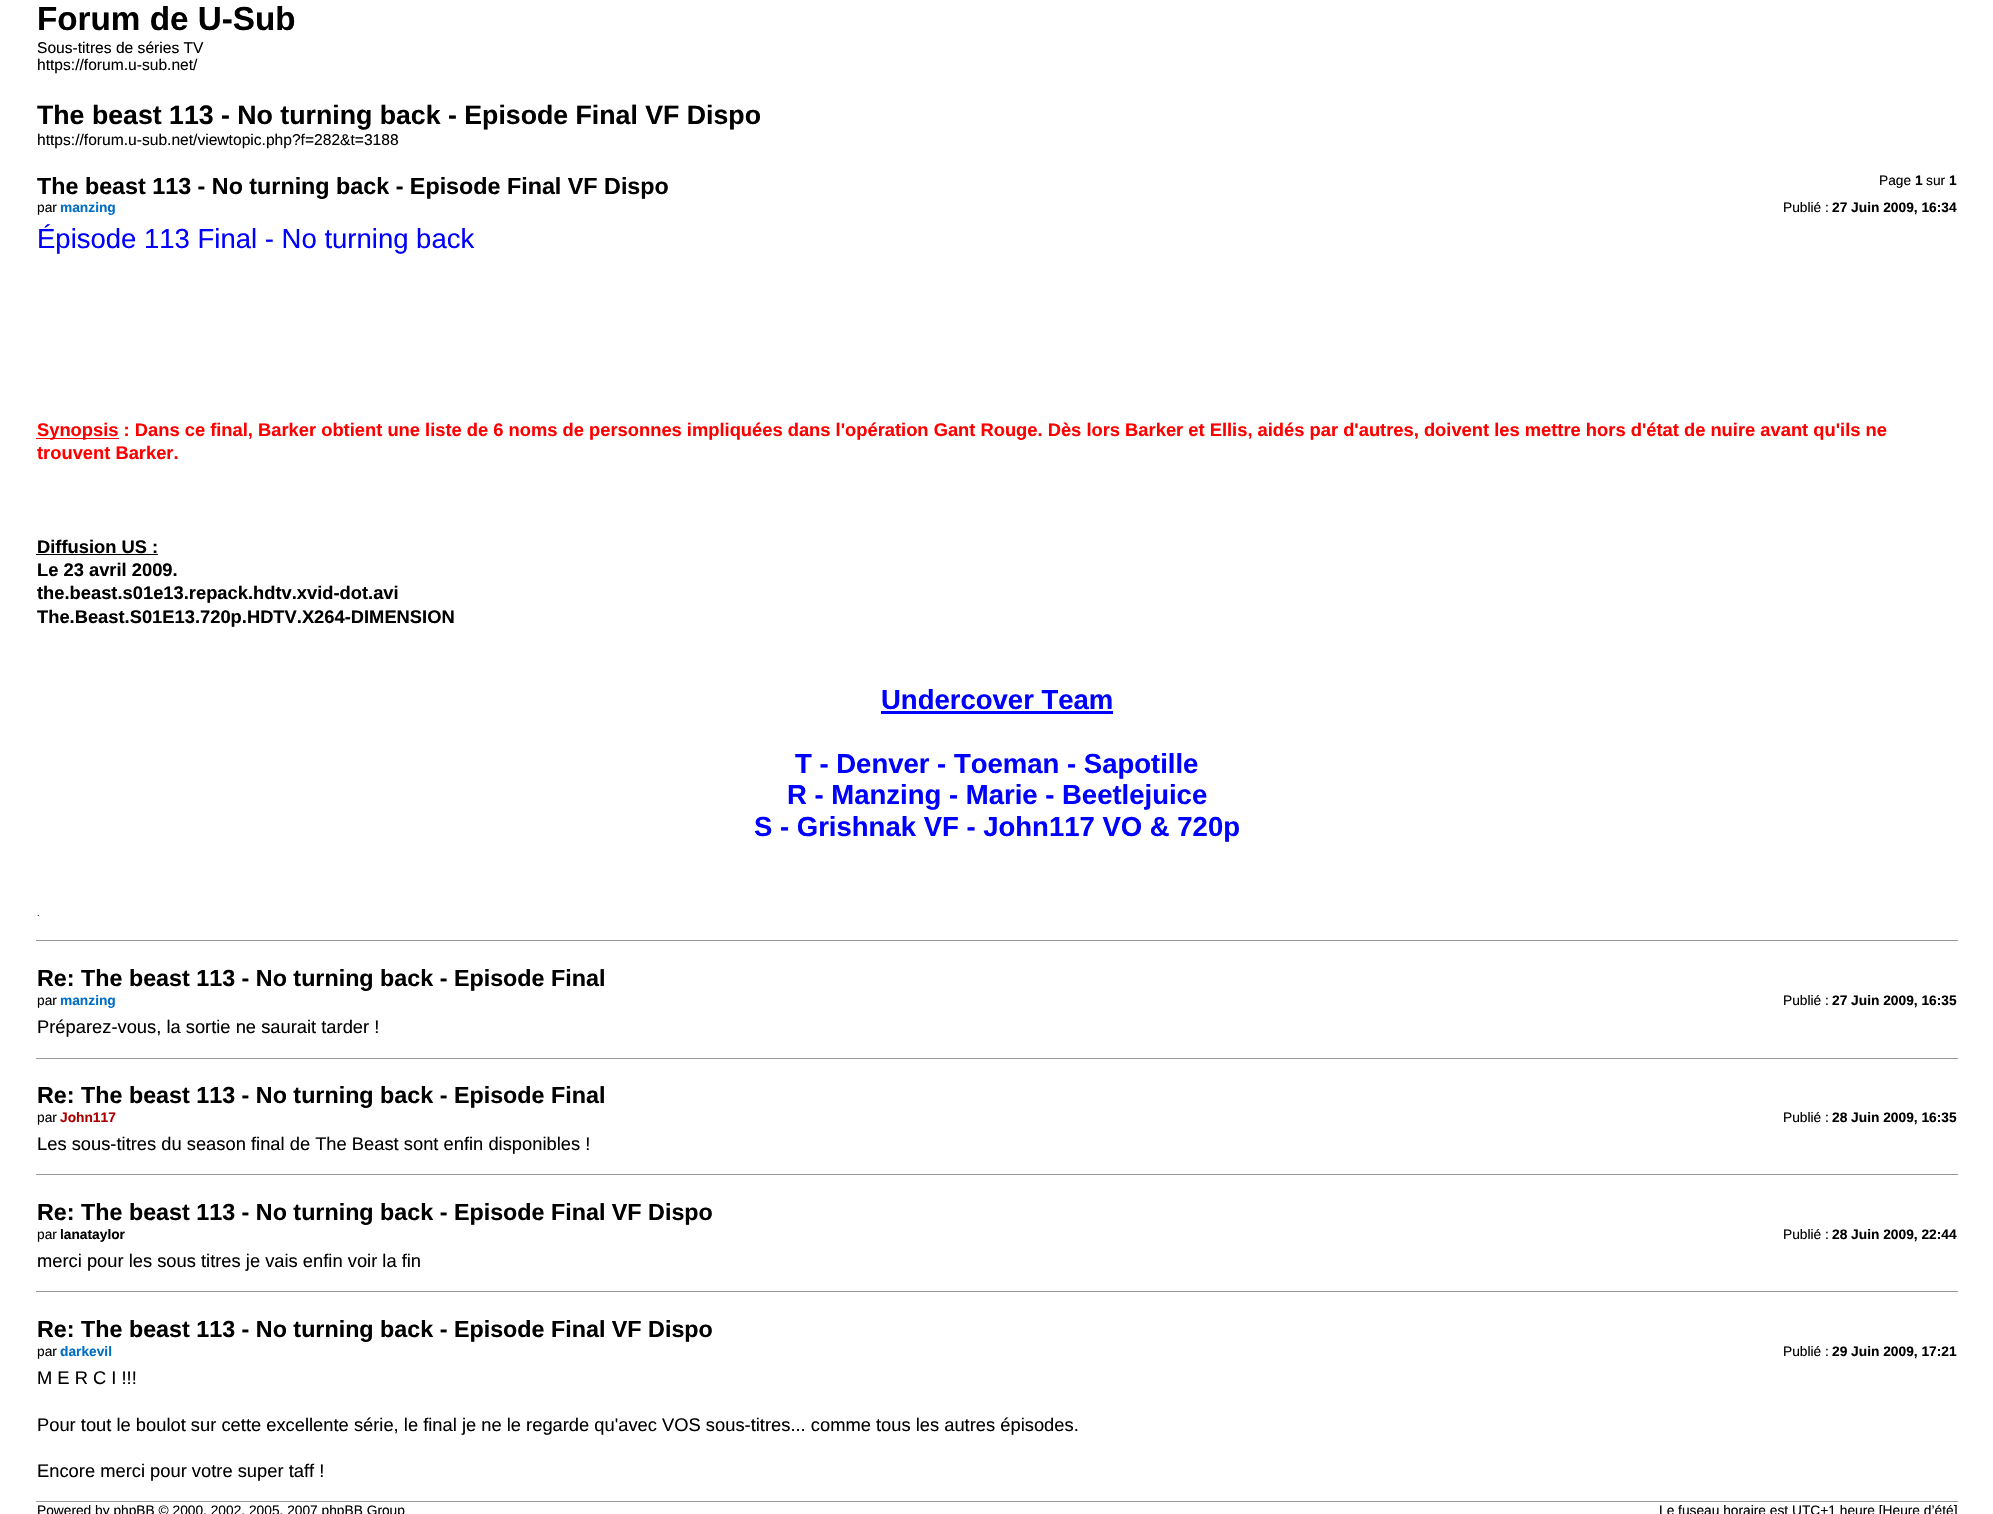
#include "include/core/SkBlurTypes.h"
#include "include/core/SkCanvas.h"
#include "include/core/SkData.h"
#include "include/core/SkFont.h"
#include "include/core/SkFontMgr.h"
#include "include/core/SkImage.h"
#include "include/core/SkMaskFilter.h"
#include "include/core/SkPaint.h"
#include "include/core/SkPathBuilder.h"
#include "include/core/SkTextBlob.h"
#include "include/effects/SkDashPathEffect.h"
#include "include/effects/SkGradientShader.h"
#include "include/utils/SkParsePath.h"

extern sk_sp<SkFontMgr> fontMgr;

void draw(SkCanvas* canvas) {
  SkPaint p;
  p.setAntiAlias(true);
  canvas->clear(SK_ColorWHITE);
  p.setColor(SkColorSetRGB(255, 0, 0));
  canvas->drawRect(SkRect::MakeLTRB(36, 438, 119, 439), p);
  p.setColor(SK_ColorBLACK);
  canvas->drawRect(SkRect::MakeLTRB(36, 554, 158, 555), p);
  p.setColor(SkColorSetRGB(0, 0, 255));
  canvas->drawRect(SkRect::MakeLTRB(881, 711, 1113, 714), p);
  p.setColor(SkColorSetRGB(153, 153, 153));
  canvas->drawRect(SkRect::MakeLTRB(36, 940, 1958, 941), p);
  canvas->drawRect(SkRect::MakeLTRB(36, 1058, 1958, 1059), p);
  canvas->drawRect(SkRect::MakeLTRB(36, 1174, 1958, 1175), p);
  canvas->drawRect(SkRect::MakeLTRB(36, 1291, 1958, 1292), p);
  canvas->drawRect(SkRect::MakeLTRB(36, 1501, 1958, 1502), p);
  SkFont font1(fontMgr->matchFamilyStyle("Liberation Sans", SkFontStyle::Bold()), 33.25f);
  font1.setSubpixel(true);
  p.setColor(SK_ColorBLACK);
  canvas->drawString("Forum de U-Sub", 37, 30, font1, p);
  SkFont font2(fontMgr->matchFamilyStyle("Liberation Sans", SkFontStyle::Normal()), 15.6f);
  font2.setSubpixel(true);
  canvas->drawString("Sous-titres de séries TV", 37, 53, font2, p);
  canvas->drawString("https://forum.u-sub.net/", 37, 70, font2, p);
  SkFont font3(fontMgr->matchFamilyStyle("Liberation Sans", SkFontStyle::Bold()), 26.7f);
  font3.setSubpixel(true);
  canvas->drawString("The beast 113 - No turning back - Episode Final VF Dispo", 37, 124, font3, p);
  canvas->drawString("https://forum.u-sub.net/viewtopic.php?f=282&t=3188", 37, 145, font2, p);
  SkFont font4(fontMgr->matchFamilyStyle("Liberation Sans", SkFontStyle::Normal()), 13.75f);
  font4.setSubpixel(true);
  canvas->drawString("Page", 1879, 185, font4, p);
  SkFont font5(fontMgr->matchFamilyStyle("Liberation Sans", SkFontStyle::Bold()), 13.75f);
  font5.setSubpixel(true);
  canvas->drawString("1", 1915, 185, font5, p);
  canvas->drawString("sur", 1926, 185, font4, p);
  canvas->drawString("1", 1949, 185, font5, p);
  SkFont font6(fontMgr->matchFamilyStyle("Liberation Sans", SkFontStyle::Bold()), 23.3f);
  font6.setSubpixel(true);
  canvas->drawString("The beast 113 - No turning back - Episode Final VF Dispo", 37, 194, font6, p);
  canvas->drawString("par", 37, 212, font4, p);
  p.setColor(SkColorSetRGB(0, 110, 198));
  canvas->drawString("manzing", 60, 212, font5, p);
  p.setColor(SK_ColorBLACK);
  canvas->drawString("Publié :", 1783, 212, font4, p);
  canvas->drawString("27 Juin 2009, 16:34", 1832, 212, font5, p);
  SkFont font7(fontMgr->matchFamilyStyle("Liberation Sans", SkFontStyle::Normal()), 27.5f);
  font7.setSubpixel(true);
  p.setColor(SkColorSetRGB(0, 0, 255));
  canvas->drawString("Épisode 113 Final - No turning back", 37, 248, font7, p);
  SkFont font8(fontMgr->matchFamilyStyle("Liberation Sans", SkFontStyle::Bold()), 18.33f);
  font8.setSubpixel(true);
  p.setColor(SkColorSetRGB(255, 0, 0));
  canvas->drawString("Synopsis : Dans ce final, Barker obtient une liste de 6 noms de personnes impliquées dans l'opération Gant Rouge. Dès lors Barker et Ellis, aidés par d'autres, doivent les mettre hors d'état de nuire avant qu'ils ne", 37, 436, font8, p);
  canvas->drawString("trouvent Barker.", 37, 459, font8, p);
  p.setColor(SK_ColorBLACK);
  canvas->drawString("Diffusion US :", 37, 553, font8, p);
  canvas->drawString("Le 23 avril 2009.", 37, 576, font8, p);
  canvas->drawString("the.beast.s01e13.repack.hdtv.xvid-dot.avi", 37, 599, font8, p);
  canvas->drawString("The.Beast.S01E13.720p.HDTV.X264-DIMENSION", 37, 623, font8, p);
  SkFont font9(fontMgr->matchFamilyStyle("Liberation Sans", SkFontStyle::Bold()), 27.5f);
  font9.setSubpixel(true);
  p.setColor(SkColorSetRGB(0, 0, 255));
  canvas->drawString("Undercover Team", 881, 709, font9, p);
  canvas->drawString("T - Denver - Toeman - Sapotille", 795, 773, font9, p);
  canvas->drawString("R - Manzing - Marie - Beetlejuice", 787, 804, font9, p);
  canvas->drawString("S - Grishnak VF - John117 VO & 720p", 754, 836, font9, p);
  SkFont font10(fontMgr->matchFamilyStyle("Liberation Sans", SkFontStyle::Normal()), 9);
  font10.setSubpixel(true);
  p.setColor(SK_ColorBLACK);
  canvas->drawString(".", 37, 916, font10, p);
  canvas->drawString("Re: The beast 113 - No turning back - Episode Final", 37, 986, font6, p);
  canvas->drawString("par", 37, 1005, font4, p);
  p.setColor(SkColorSetRGB(0, 110, 198));
  canvas->drawString("manzing", 60, 1005, font5, p);
  p.setColor(SK_ColorBLACK);
  canvas->drawString("Publié :", 1783, 1005, font4, p);
  canvas->drawString("27 Juin 2009, 16:35", 1832, 1005, font5, p);
  SkFont font11(fontMgr->matchFamilyStyle("Liberation Sans", SkFontStyle::Normal()), 18.33f);
  font11.setSubpixel(true);
  canvas->drawString("Préparez-vous, la sortie ne saurait tarder !", 37, 1033, font11, p);
  canvas->drawString("Re: The beast 113 - No turning back - Episode Final", 37, 1103, font6, p);
  canvas->drawString("par", 37, 1122, font4, p);
  p.setColor(SkColorSetRGB(170, 0, 0));
  canvas->drawString("John117", 60, 1122, font5, p);
  p.setColor(SK_ColorBLACK);
  canvas->drawString("Publié :", 1783, 1122, font4, p);
  canvas->drawString("28 Juin 2009, 16:35", 1832, 1122, font5, p);
  canvas->drawString("Les sous-titres du season final de The Beast sont enfin disponibles !", 37, 1150, font11, p);
  canvas->drawString("Re: The beast 113 - No turning back - Episode Final VF Dispo", 37, 1220, font6, p);
  canvas->drawString("par", 37, 1239, font4, p);
  canvas->drawString("lanataylor", 60, 1239, font5, p);
  canvas->drawString("Publié :", 1783, 1239, font4, p);
  canvas->drawString("28 Juin 2009, 22:44", 1832, 1239, font5, p);
  canvas->drawString("merci pour les sous titres je vais enfin voir la fin", 37, 1267, font11, p);
  canvas->drawString("Re: The beast 113 - No turning back - Episode Final VF Dispo", 37, 1337, font6, p);
  canvas->drawString("par", 37, 1356, font4, p);
  p.setColor(SkColorSetRGB(0, 110, 198));
  canvas->drawString("darkevil", 60, 1356, font5, p);
  p.setColor(SK_ColorBLACK);
  canvas->drawString("Publié :", 1783, 1356, font4, p);
  canvas->drawString("29 Juin 2009, 17:21", 1832, 1356, font5, p);
  canvas->drawString("M E R C I !!!", 37, 1384, font11, p);
  canvas->drawString("Pour tout le boulot sur cette excellente série, le final je ne le regarde qu'avec VOS sous-titres... comme tous les autres épisodes.", 37, 1431, font11, p);
  canvas->drawString("Encore merci pour votre super taff !", 37, 1477, font11, p);
  canvas->drawString("Powered by phpBB © 2000, 2002, 2005, 2007 phpBB Group", 37, 1515, font4, p);
  canvas->drawString("Le fuseau horaire est UTC+1 heure [Heure d’été]", 1659, 1515, font4, p);
}
